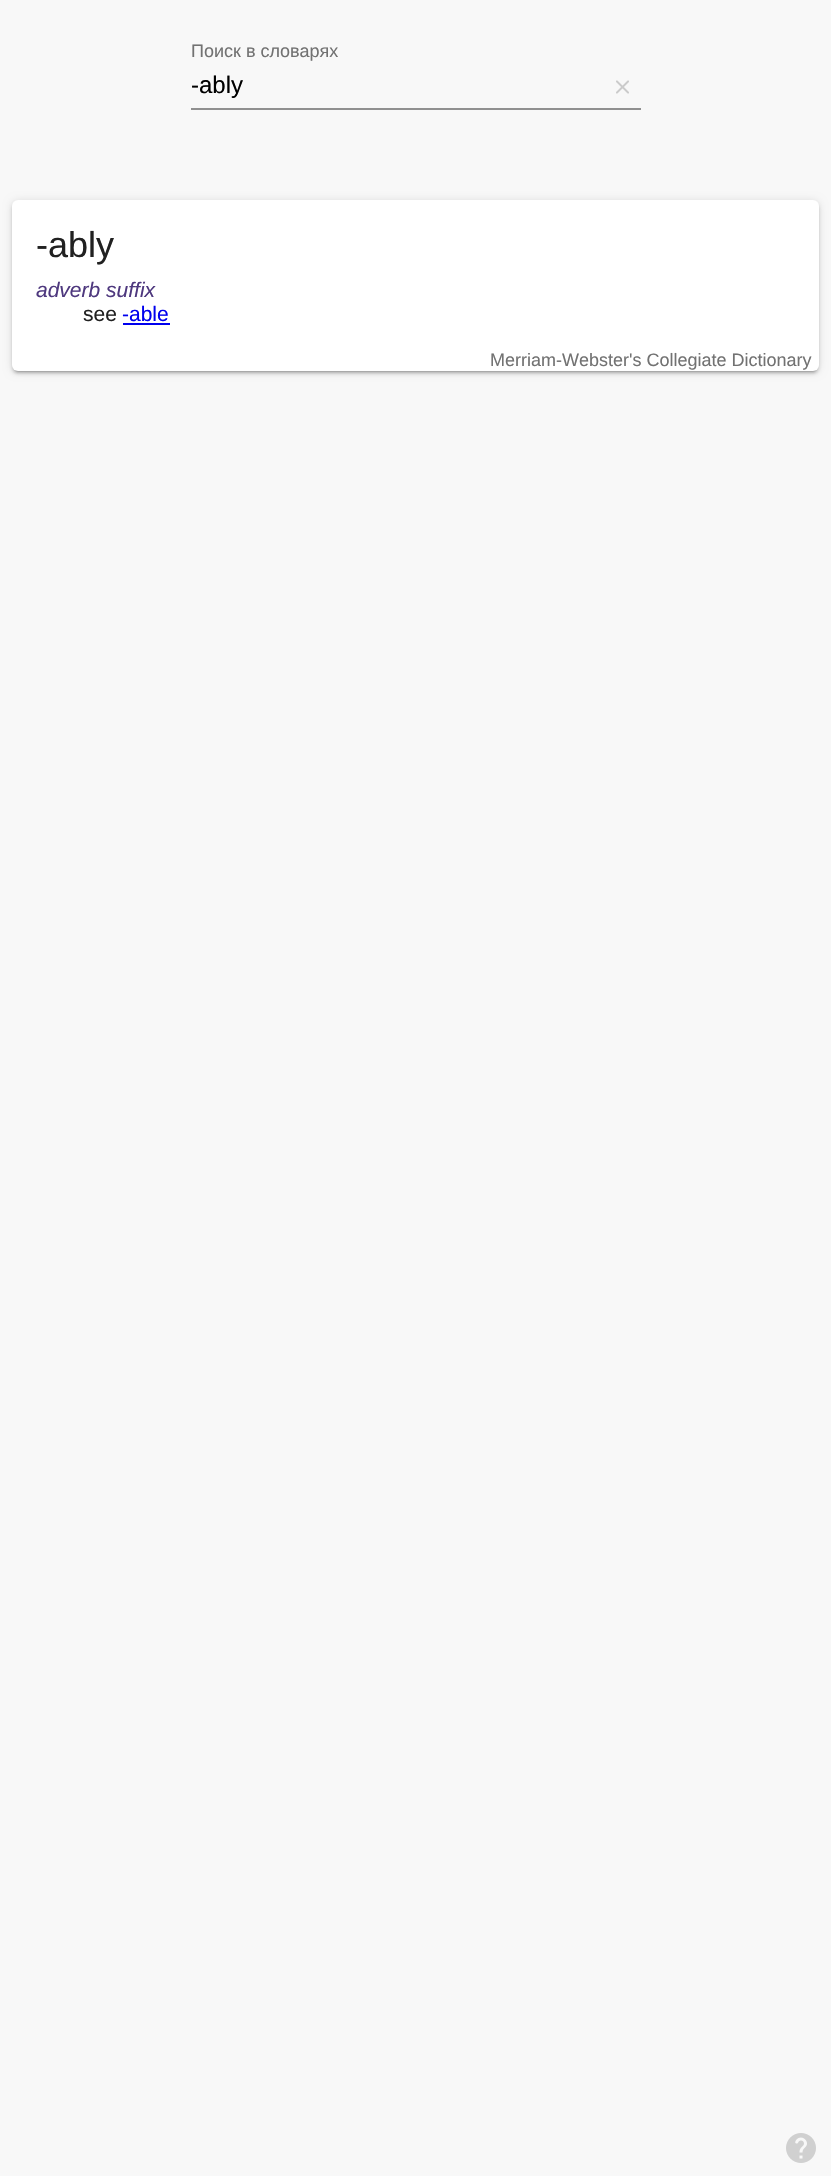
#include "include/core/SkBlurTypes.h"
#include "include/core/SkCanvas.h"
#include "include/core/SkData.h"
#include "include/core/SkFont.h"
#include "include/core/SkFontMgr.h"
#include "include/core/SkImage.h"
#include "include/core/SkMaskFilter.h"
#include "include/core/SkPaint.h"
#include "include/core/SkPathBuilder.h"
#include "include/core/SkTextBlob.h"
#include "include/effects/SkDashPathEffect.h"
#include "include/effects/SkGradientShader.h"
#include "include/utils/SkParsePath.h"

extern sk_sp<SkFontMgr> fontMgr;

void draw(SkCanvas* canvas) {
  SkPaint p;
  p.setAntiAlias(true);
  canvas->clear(SkColorSetRGB(248, 248, 248));
  canvas->drawImageRect(SkImages::DeferredFromEncodedData(SkData::MakeFromFileName("images/1.png")), SkRect::MakeLTRB(616, 80, 629, 94), SkSamplingOptions());
  p.setColor(SkColorSetRGB(144, 144, 144));
  canvas->drawRect(SkRect::MakeLTRB(191, 108, 641, 110), p);
  p.setColor(SkColorSetARGB(31, 0, 0, 0));
  p.setMaskFilter(SkMaskFilter::MakeBlur(kNormal_SkBlurStyle, 4));
  canvas->drawRoundRect(SkRect::MakeLTRB(12, 201, 819, 372), 6, 6, p);
  p.setMaskFilter(nullptr);
  p.setColor(SkColorSetARGB(36, 0, 0, 0));
  p.setMaskFilter(SkMaskFilter::MakeBlur(kNormal_SkBlurStyle, 1.5f));
  canvas->drawRoundRect(SkRect::MakeLTRB(12, 203, 819, 374), 6, 6, p);
  p.setMaskFilter(nullptr);
  p.setColor(SkColorSetARGB(51, 0, 0, 0));
  p.setMaskFilter(SkMaskFilter::MakeBlur(kNormal_SkBlurStyle, 1));
  canvas->drawRoundRect(SkRect::MakeLTRB(15, 207, 816, 372), 3, 3, p);
  p.setMaskFilter(nullptr);
  p.setColor(SK_ColorWHITE);
  canvas->drawRoundRect(SkRect::MakeLTRB(12, 200, 819, 371), 6, 6, p);
  p.setColor(SkColorSetRGB(0, 0, 238));
  canvas->drawRect(SkRect::MakeLTRB(123, 323, 170, 325), p);
  canvas->drawImageRect(SkImages::DeferredFromEncodedData(SkData::MakeFromFileName("images/2.png")), SkRect::MakeLTRB(786, 2133, 816, 2163), SkSamplingOptions());
  SkFont font1(fontMgr->matchFamilyStyle("Liberation Sans", SkFontStyle::Normal()), 18);
  font1.setSubpixel(true);
  p.setColor(SkColorSetRGB(114, 114, 114));
  canvas->drawString("Поиск в словарях", 191, 57, font1, p);
  SkFont font2(fontMgr->matchFamilyStyle("Liberation Sans", SkFontStyle::Normal()), 24);
  font2.setSubpixel(true);
  p.setColor(SK_ColorBLACK);
  canvas->drawString("-ably", 191, 93, font2, p);
  SkFont font3(fontMgr->matchFamilyStyle("Liberation Sans", SkFontStyle::Normal()), 36);
  font3.setSubpixel(true);
  p.setColor(SkColorSetRGB(33, 33, 33));
  canvas->drawString("-ably", 36, 257, font3, p);
  SkFont font4(fontMgr->matchFamilyStyle("Liberation Sans", SkFontStyle::Italic()), 21);
  font4.setSubpixel(true);
  p.setColor(SkColorSetRGB(78, 56, 126));
  canvas->drawString("adverb suffix", 36, 297, font4, p);
  SkFont font5(fontMgr->matchFamilyStyle("Liberation Sans", SkFontStyle::Normal()), 21);
  font5.setSubpixel(true);
  p.setColor(SkColorSetRGB(33, 33, 33));
  canvas->drawString("see", 83, 321, font5, p);
  p.setColor(SkColorSetRGB(0, 0, 238));
  canvas->drawString("-able", 122, 321, font5, p);
  p.setColor(SkColorSetRGB(114, 114, 114));
  canvas->drawString("Merriam-Webster's Collegiate Dictionary", 490, 366, font1, p);
}
